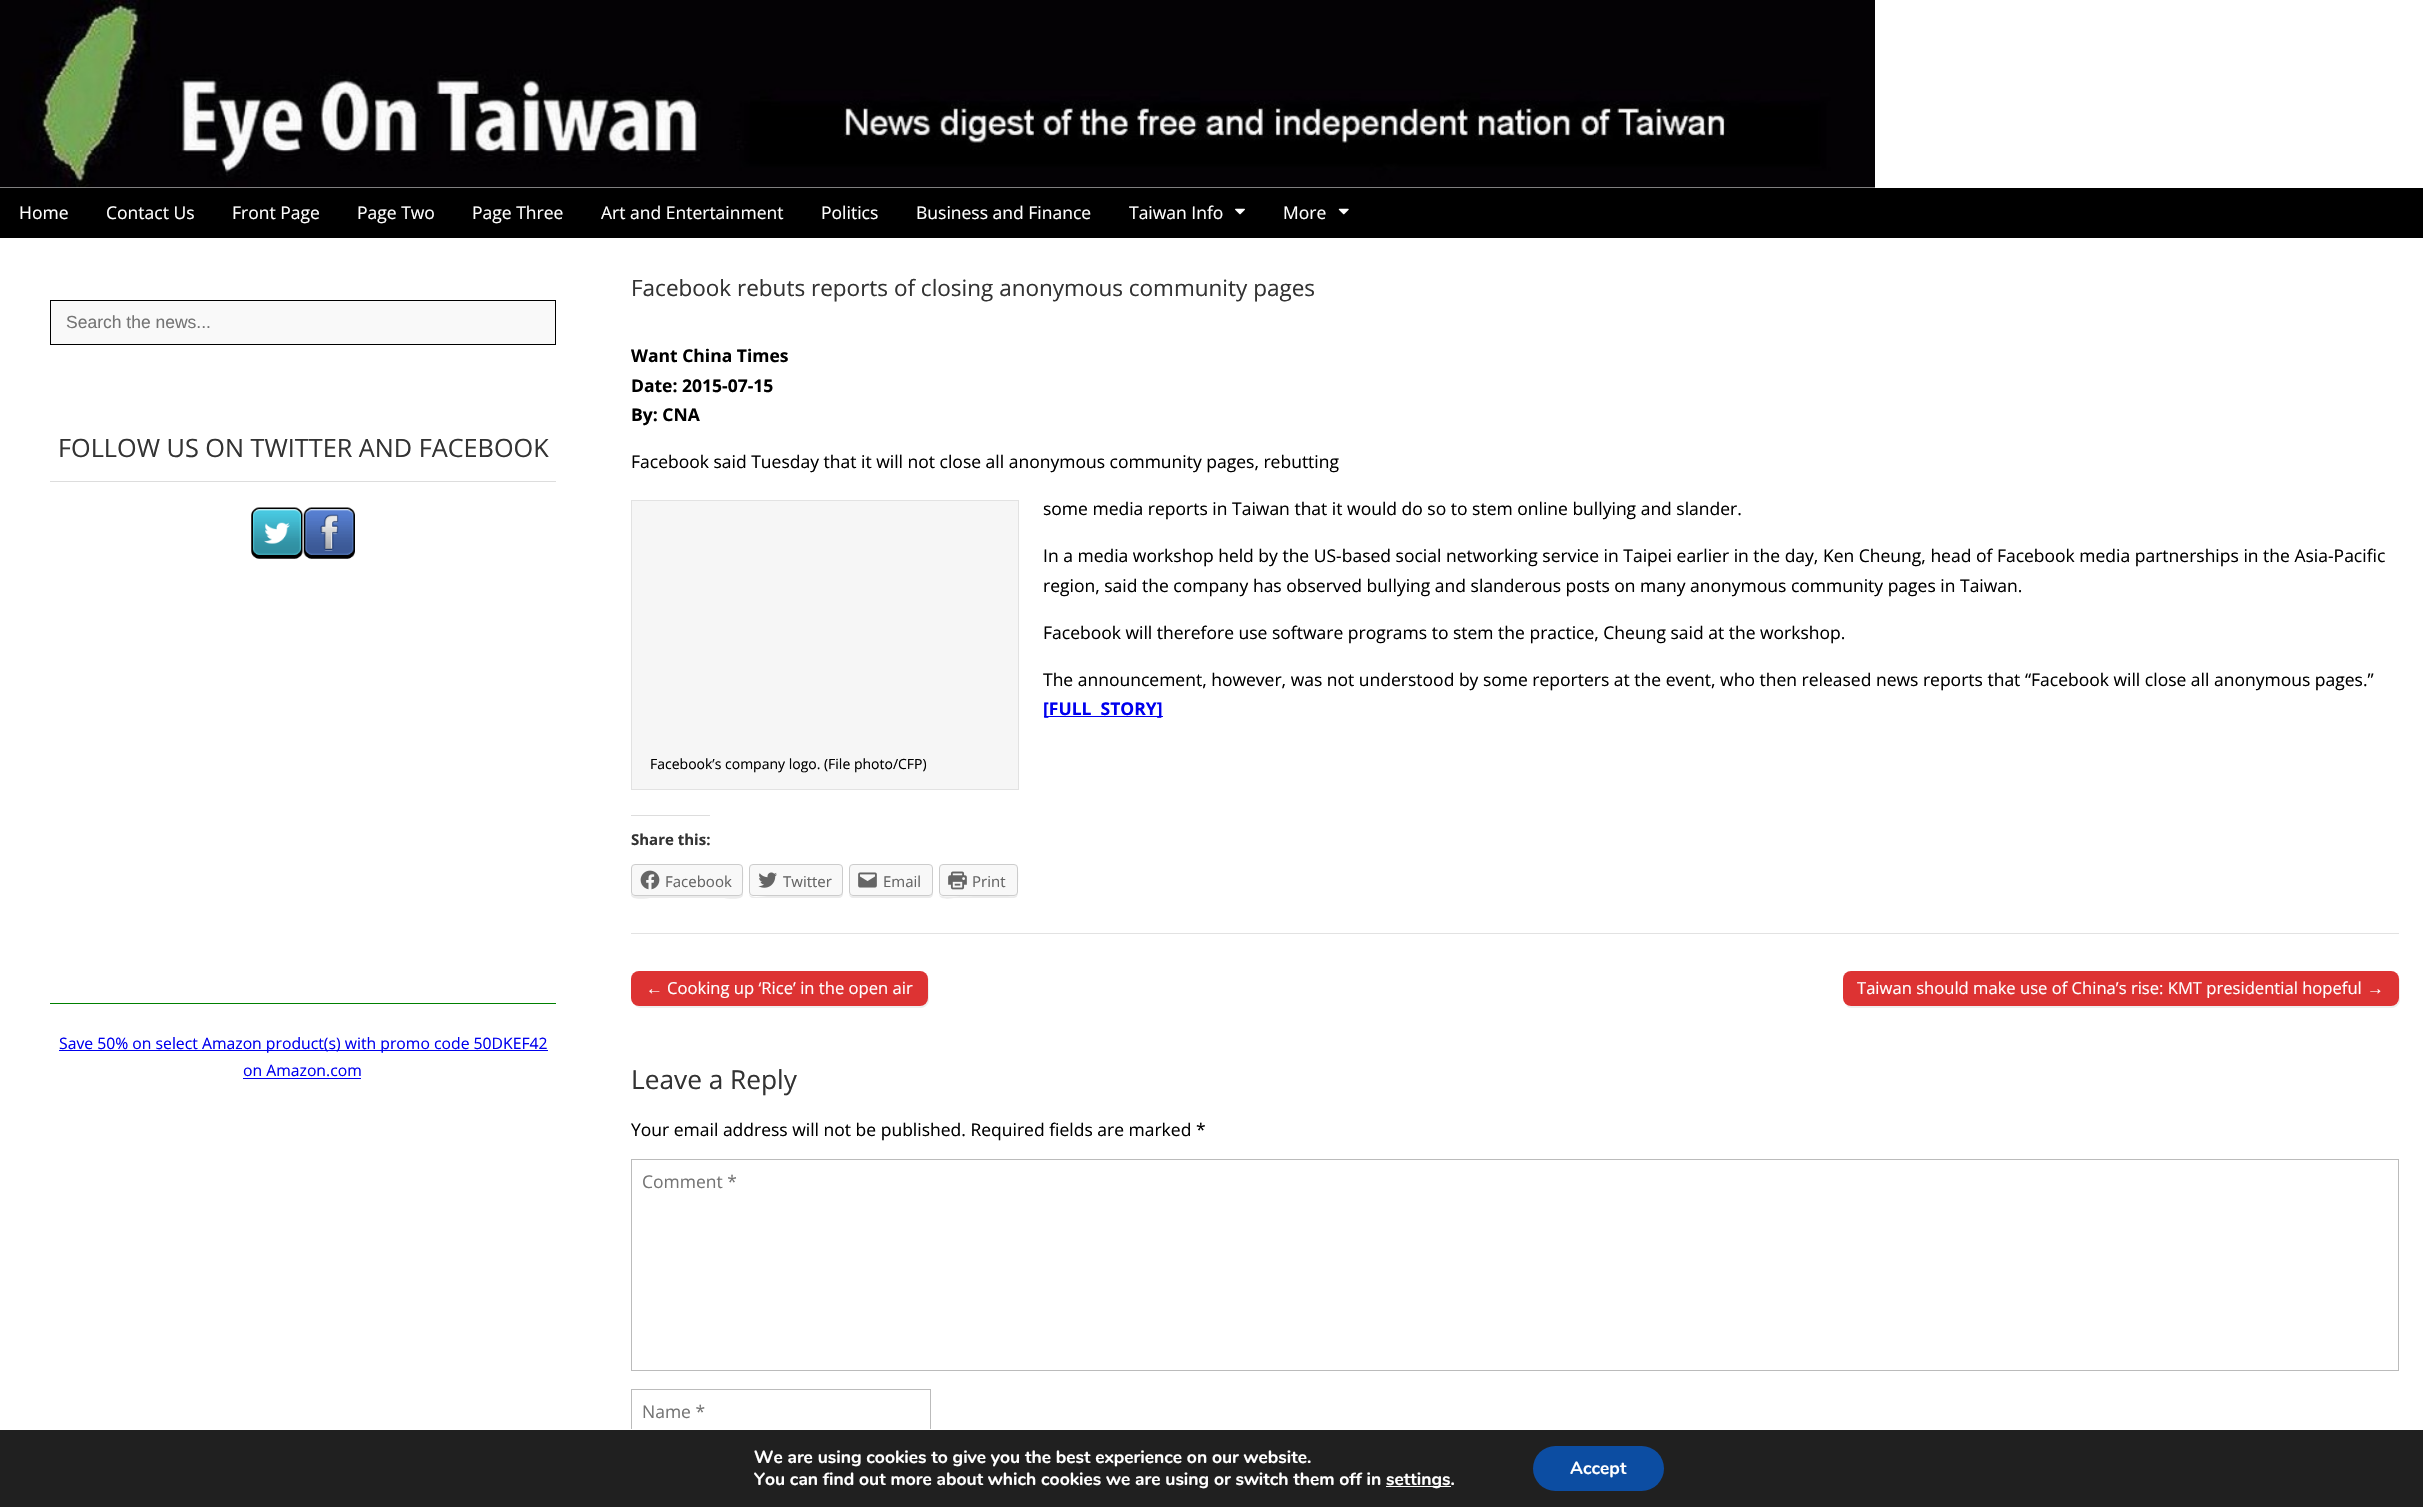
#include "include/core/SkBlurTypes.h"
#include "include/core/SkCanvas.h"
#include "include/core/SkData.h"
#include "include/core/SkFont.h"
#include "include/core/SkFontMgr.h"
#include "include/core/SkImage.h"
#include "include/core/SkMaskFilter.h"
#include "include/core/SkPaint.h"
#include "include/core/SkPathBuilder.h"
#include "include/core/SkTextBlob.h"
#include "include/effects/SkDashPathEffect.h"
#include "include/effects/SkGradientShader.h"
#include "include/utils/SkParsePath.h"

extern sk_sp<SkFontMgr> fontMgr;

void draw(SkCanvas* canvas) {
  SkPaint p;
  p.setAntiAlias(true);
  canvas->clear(SK_ColorWHITE);
  canvas->drawImageRect(SkImages::DeferredFromEncodedData(SkData::MakeFromFileName("images/1.png")), SkRect::MakeLTRB(0, 0, 1875, 188), SkSamplingOptions());
  p.setColor(SK_ColorBLACK);
  canvas->drawRect(SkRect::MakeLTRB(0, 188, 2423, 238), p);
  canvas->drawImageRect(SkImages::DeferredFromEncodedData(SkData::MakeFromFileName("images/2.png")), SkRect::MakeLTRB(1235, 208, 1245, 215), SkSamplingOptions());
  canvas->drawImageRect(SkImages::DeferredFromEncodedData(SkData::MakeFromFileName("images/3.png")), SkRect::MakeLTRB(1338, 208, 1349, 215), SkSamplingOptions());
  p.setColor(SkColorSetRGB(249, 249, 249));
  canvas->drawRect(SkRect::MakeLTRB(50.5f, 300.5f, 555.5f, 344.5f), p);
  p.setStyle(SkPaint::kStroke_Style);
  p.setStrokeWidth(1);
  p.setColor(SK_ColorBLACK);
  canvas->drawRect(SkRect::MakeLTRB(50.5f, 300.5f, 555.5f, 344.5f), p);
  p.setStyle(SkPaint::kFill_Style);
  p.setColor(SkColorSetRGB(221, 221, 221));
  canvas->drawRect(SkRect::MakeLTRB(50, 481, 556, 482), p);
  canvas->drawImageRect(SkImages::DeferredFromEncodedData(SkData::MakeFromFileName("images/4.png")), SkRect::MakeLTRB(251, 507, 303, 559), SkSamplingOptions());
  canvas->drawImageRect(SkImages::DeferredFromEncodedData(SkData::MakeFromFileName("images/5.png")), SkRect::MakeLTRB(303, 507, 355, 559), SkSamplingOptions());
  p.setColor(SkColorSetRGB(0, 128, 0));
  canvas->drawRect(SkRect::MakeLTRB(50, 1003, 556, 1004), p);
  p.setColor(SkColorSetRGB(0, 0, 238));
  canvas->drawRect(SkRect::MakeLTRB(59, 1050, 548, 1051), p);
  canvas->drawRect(SkRect::MakeLTRB(243, 1078, 361, 1079), p);
  p.setColor(SkColorSetRGB(226, 226, 226));
  canvas->drawRect(SkRect::MakeLTRB(631, 933, 2399, 934), p);
  p.setColor(SkColorSetRGB(0, 0, 238));
  canvas->drawRect(SkRect::MakeLTRB(1044, 716, 1163, 717), p);
  p.setColor(SkColorSetRGB(246, 246, 246));
  canvas->drawRect(SkRect::MakeLTRB(631.5f, 500.5f, 1018.5f, 789.5f), p);
  p.setStyle(SkPaint::kStroke_Style);
  p.setColor(SkColorSetRGB(226, 226, 226));
  canvas->drawRect(SkRect::MakeLTRB(631.5f, 500.5f, 1018.5f, 789.5f), p);
  p.setStyle(SkPaint::kFill_Style);
  p.setColor(SkColorSetRGB(221, 221, 221));
  canvas->drawRect(SkRect::MakeLTRB(631, 815, 710, 816), p);
  p.setColor(SkColorSetRGB(235, 235, 235));
  canvas->drawPath(SkPathBuilder().moveTo(631, 868).lineTo(631, 895).cubicTo(632, 901, 647, 898, 652, 898).lineTo(722, 898).cubicTo(727, 898, 742, 901, 743, 895).lineTo(743, 886).cubicTo(743, 882, 744, 870, 742, 867).lineTo(742, 892).cubicTo(742, 895, 741, 896, 739, 896).lineTo(635, 896).cubicTo(633, 896, 631, 895, 631, 892).close().detach(), p);
  p.setColor(SkColorSetRGB(248, 248, 248));
  canvas->drawRoundRect(SkRect::MakeLTRB(631.5f, 864.5f, 742.5f, 895.5f), 3.5f, 3.5f, p);
  p.setStyle(SkPaint::kStroke_Style);
  p.setColor(SkColorSetRGB(204, 204, 204));
  canvas->drawRoundRect(SkRect::MakeLTRB(631.5f, 864.5f, 742.5f, 895.5f), 3.5f, 3.5f, p);
  canvas->drawImageRect(SkImages::DeferredFromEncodedData(SkData::MakeFromFileName("images/6.png")), SkRect::MakeLTRB(640, 870, 660, 890), SkSamplingOptions());
  p.setStyle(SkPaint::kFill_Style);
  p.setColor(SkColorSetRGB(235, 235, 235));
  canvas->drawPath(SkPathBuilder().moveTo(749, 894).cubicTo(749, 896, 751, 898, 753, 898).lineTo(839, 898).cubicTo(841, 898, 843, 896, 843, 894).lineTo(843, 869).lineTo(842, 867).lineTo(842, 888).cubicTo(842, 891, 843, 896, 839, 896).lineTo(767, 896).cubicTo(763, 896, 751, 899, 749, 894).close().detach(), p);
  p.setColor(SkColorSetRGB(248, 248, 248));
  canvas->drawRoundRect(SkRect::MakeLTRB(749.5f, 864.5f, 842.5f, 895.5f), 3.5f, 3.5f, p);
  p.setStyle(SkPaint::kStroke_Style);
  p.setColor(SkColorSetRGB(204, 204, 204));
  canvas->drawRoundRect(SkRect::MakeLTRB(749.5f, 864.5f, 842.5f, 895.5f), 3.5f, 3.5f, p);
  canvas->drawImageRect(SkImages::DeferredFromEncodedData(SkData::MakeFromFileName("images/7.png")), SkRect::MakeLTRB(758, 872, 777, 888), SkSamplingOptions());
  p.setStyle(SkPaint::kFill_Style);
  p.setColor(SkColorSetRGB(235, 235, 235));
  canvas->drawPath(SkPathBuilder().moveTo(849, 894).cubicTo(849, 896, 851, 898, 853, 898).lineTo(929, 898).cubicTo(931, 898, 933, 896, 933, 894).lineTo(933, 869).lineTo(932, 867).lineTo(932, 892).cubicTo(932, 895, 931, 896, 929, 896).lineTo(852, 896).cubicTo(851, 896, 850, 895, 849, 894).close().detach(), p);
  p.setColor(SkColorSetRGB(248, 248, 248));
  canvas->drawRoundRect(SkRect::MakeLTRB(849.5f, 864.5f, 932.5f, 895.5f), 3.5f, 3.5f, p);
  p.setStyle(SkPaint::kStroke_Style);
  p.setColor(SkColorSetRGB(204, 204, 204));
  canvas->drawRoundRect(SkRect::MakeLTRB(849.5f, 864.5f, 932.5f, 895.5f), 3.5f, 3.5f, p);
  canvas->drawImageRect(SkImages::DeferredFromEncodedData(SkData::MakeFromFileName("images/8.png")), SkRect::MakeLTRB(858, 872, 877, 888), SkSamplingOptions());
  p.setStyle(SkPaint::kFill_Style);
  p.setColor(SkColorSetRGB(235, 235, 235));
  canvas->drawPath(SkPathBuilder().moveTo(939, 894).cubicTo(939, 901, 953, 898, 955, 898).lineTo(1002, 898).cubicTo(1018, 898, 1018, 900, 1018, 886).cubicTo(1018, 882, 1019, 870, 1017, 867).lineTo(1018, 884).cubicTo(1018, 899, 1018, 896, 1002, 896).lineTo(978, 896).cubicTo(973, 896, 943, 897, 940, 896).close().detach(), p);
  p.setColor(SkColorSetRGB(248, 248, 248));
  canvas->drawRoundRect(SkRect::MakeLTRB(939.5f, 864.5f, 1017.5f, 895.5f), 3.5f, 3.5f, p);
  p.setStyle(SkPaint::kStroke_Style);
  p.setColor(SkColorSetRGB(204, 204, 204));
  canvas->drawRoundRect(SkRect::MakeLTRB(939.5f, 864.5f, 1017.5f, 895.5f), 3.5f, 3.5f, p);
  canvas->drawImageRect(SkImages::DeferredFromEncodedData(SkData::MakeFromFileName("images/9.png")), SkRect::MakeLTRB(948, 871, 967, 890), SkSamplingOptions());
  p.setStyle(SkPaint::kFill_Style);
  p.setColor(SkColorSetRGB(238, 238, 238));
  canvas->drawPath(SkPathBuilder().moveTo(635, 1005).cubicTo(636, 1007, 639, 1008, 641, 1008).lineTo(921, 1008).cubicTo(925, 1008, 929, 1004, 929, 1000).lineTo(929, 981).cubicTo(929, 979, 928, 977, 927, 975).cubicTo(929, 979, 928, 988, 928, 992).cubicTo(928, 998, 928, 1006, 920, 1006).lineTo(638, 1006).close().detach(), p);
  p.setColor(SkColorSetRGB(221, 51, 51));
  canvas->drawRoundRect(SkRect::MakeLTRB(631, 971, 928, 1006), 8, 8, p);
  p.setColor(SkColorSetRGB(238, 238, 238));
  canvas->drawPath(SkPathBuilder().moveTo(1846, 1005).cubicTo(1847, 1007, 1849, 1008, 1852, 1008).lineTo(2392, 1008).cubicTo(2396, 1008, 2400, 1004, 2400, 1000).lineTo(2400, 981).cubicTo(2400, 979, 2399, 977, 2398, 976).lineTo(2399, 979).lineTo(2399, 999).cubicTo(2399, 1003, 2395, 1006, 2391, 1006).lineTo(1850, 1006).cubicTo(1848, 1006, 1847, 1006, 1846, 1005).close().detach(), p);
  p.setColor(SkColorSetRGB(221, 51, 51));
  canvas->drawRoundRect(SkRect::MakeLTRB(1843, 971, 2399, 1006), 8, 8, p);
  p.setStyle(SkPaint::kStroke_Style);
  p.setColor(SkColorSetRGB(187, 187, 187));
  canvas->drawRect(SkRect::MakeLTRB(631.5f, 1159.5f, 2398.5f, 1370.5f), p);
  canvas->drawRect(SkRect::MakeLTRB(631.5f, 1389.5f, 930.5f, 1434.5f), p);
  p.setStyle(SkPaint::kFill_Style);
  p.setColor(SkColorSetRGB(32, 32, 32));
  canvas->drawRect(SkRect::MakeLTRB(0, 1430, 2423, 1507), p);
  p.setColor(SK_ColorWHITE);
  canvas->drawRect(SkRect::MakeLTRB(631, 1429, 931, 1430), p);
  canvas->drawRect(SkRect::MakeLTRB(1386, 1486, 1451, 1487), p);
  p.setColor(SkColorSetRGB(12, 77, 162));
  canvas->drawRoundRect(SkRect::MakeLTRB(1533, 1446, 1664, 1491), 22.5f, 22.5f, p);
  SkFont font1(fontMgr->matchFamilyStyle("Open Sans", SkFontStyle::Normal()), 17.5f);
  font1.setSubpixel(true);
  p.setColor(SK_ColorWHITE);
  canvas->drawString("Home", 19, 219, font1, p);
  canvas->drawString("Contact Us", 106, 219, font1, p);
  canvas->drawString("Front Page", 232, 219, font1, p);
  canvas->drawString("Page Two", 357, 219, font1, p);
  canvas->drawString("Page Three", 472, 219, font1, p);
  canvas->drawString("Art and Entertainment", 601, 219, font1, p);
  canvas->drawString("Politics", 821, 219, font1, p);
  canvas->drawString("Business and Finance", 916, 219, font1, p);
  canvas->drawString("Taiwan Info", 1129, 219, font1, p);
  canvas->drawString("More", 1283, 219, font1, p);
  SkFont font2(fontMgr->matchFamilyStyle("Liberation Sans", SkFontStyle::Normal()), 17.5f);
  font2.setSubpixel(true);
  p.setColor(SkColorSetRGB(117, 117, 117));
  canvas->drawString("Search the news...", 66, 328, font2, p);
  SkFont font3(fontMgr->matchFamilyStyle("Open Sans", SkFontStyle::Normal()), 25.25f);
  font3.setSubpixel(true);
  p.setColor(SkColorSetRGB(51, 51, 51));
  canvas->drawString("FOLLOW US ON TWITTER AND FACEBOOK", 58, 457, font3, p);
  SkFont font4(fontMgr->matchFamilyStyle("Open Sans", SkFontStyle::Normal()), 15.75f);
  font4.setSubpixel(true);
  p.setColor(SkColorSetRGB(0, 0, 238));
  canvas->drawString("Save 50% on select Amazon product(s) with promo code 50DKEF42", 59, 1049, font4, p);
  canvas->drawString("on Amazon.com", 243, 1076, font4, p);
  SkFont font5(fontMgr->matchFamilyStyle("Open Sans", SkFontStyle::Normal()), 22.5f);
  font5.setSubpixel(true);
  p.setColor(SkColorSetRGB(51, 51, 51));
  canvas->drawString("Facebook rebuts reports of closing anonymous community pages", 631, 296, font5, p);
  SkFont font6(fontMgr->matchFamilyStyle("Open Sans", SkFontStyle::Bold()), 17.5f);
  font6.setSubpixel(true);
  p.setColor(SK_ColorBLACK);
  canvas->drawString("Want China Times", 631, 362, font6, p);
  canvas->drawString("Date: 2015-07-15", 631, 392, font6, p);
  canvas->drawString("By: CNA", 631, 421, font6, p);
  canvas->drawString("Facebook said Tuesday that it will not close all anonymous community pages, rebutting", 631, 468, font1, p);
  canvas->drawString("some media reports in Taiwan that it would do so to stem online bullying and slander.", 1043, 515, font1, p);
  canvas->drawString("In a media workshop held by the US-based social networking service in Taipei earlier in the day, Ken Cheung, head of Facebook media partnerships in the Asia-Pacific", 1043, 562, font1, p);
  canvas->drawString("region, said the company has observed bullying and slanderous posts on many anonymous community pages in Taiwan.", 1043, 592, font1, p);
  canvas->drawString("Facebook will therefore use software programs to stem the practice, Cheung said at the workshop.", 1043, 639, font1, p);
  canvas->drawString("The announcement, however, was not understood by some reporters at the event, who then released news reports that “Facebook will close all anonymous pages.”", 1043, 686, font1, p);
  p.setColor(SkColorSetRGB(0, 0, 238));
  canvas->drawString("[FULL  STORY]", 1043, 715, font6, p);
  SkFont font7(fontMgr->matchFamilyStyle("Open Sans", SkFontStyle::Normal()), 14);
  font7.setSubpixel(true);
  p.setColor(SK_ColorBLACK);
  canvas->drawString("Facebook’s company logo. (File photo/CFP)", 650, 769, font7, p);
  SkFont font8(fontMgr->matchFamilyStyle("Open Sans", SkFontStyle::Bold()), 15);
  font8.setSubpixel(true);
  p.setColor(SkColorSetRGB(51, 51, 51));
  canvas->drawString("Share this:", 631, 845, font8, p);
  SkFont font9(fontMgr->matchFamilyStyle("Open Sans", SkFontStyle::Normal()), 15);
  font9.setSubpixel(true);
  p.setColor(SkColorSetRGB(101, 101, 101));
  canvas->drawString("Facebook", 665, 887, font9, p);
  canvas->drawString("Twitter", 783, 887, font9, p);
  canvas->drawString("Email", 883, 887, font9, p);
  canvas->drawString("Print", 972, 887, font9, p);
  SkFont font10(fontMgr->matchFamilyStyle("Liberation Sans", SkFontStyle::Normal()), 16.6f);
  font10.setSubpixel(true);
  p.setColor(SK_ColorWHITE);
  canvas->drawString("←", 646, 994, font10, p);
  SkFont font11(fontMgr->matchFamilyStyle("Open Sans", SkFontStyle::Normal()), 16.6f);
  font11.setSubpixel(true);
  canvas->drawString("Cooking up ‘Rice’ in the open air", 667, 994, font11, p);
  canvas->drawString("Taiwan should make use of China’s rise: KMT presidential hopeful", 1857, 994, font11, p);
  canvas->drawString("→", 2367, 994, font10, p);
  SkFont font12(fontMgr->matchFamilyStyle("Open Sans", SkFontStyle::Normal()), 26.25f);
  font12.setSubpixel(true);
  p.setColor(SkColorSetRGB(51, 51, 51));
  canvas->drawString("Leave a Reply", 631, 1089, font12, p);
  p.setColor(SK_ColorBLACK);
  canvas->drawString("Your email address will not be published. Required fields are marked *", 631, 1136, font1, p);
  p.setColor(SkColorSetRGB(117, 117, 117));
  canvas->drawString("Comment *", 642, 1188, font1, p);
  canvas->drawString("Name *", 642, 1418, font1, p);
  SkFont font13(fontMgr->matchFamilyStyle("Nunito", SkFontStyle::Bold()), 17.5f);
  font13.setSubpixel(true);
  p.setColor(SK_ColorWHITE);
  canvas->drawString("We are using cookies to give you the best experience on our website.", 754, 1463, font13, p);
  canvas->drawString("You can find out more about which cookies we are using or switch them off in", 754, 1485, font13, p);
  canvas->drawString("settings.", 1386, 1485, font13, p);
  canvas->drawString("Accept", 1570, 1474, font13, p);
}
